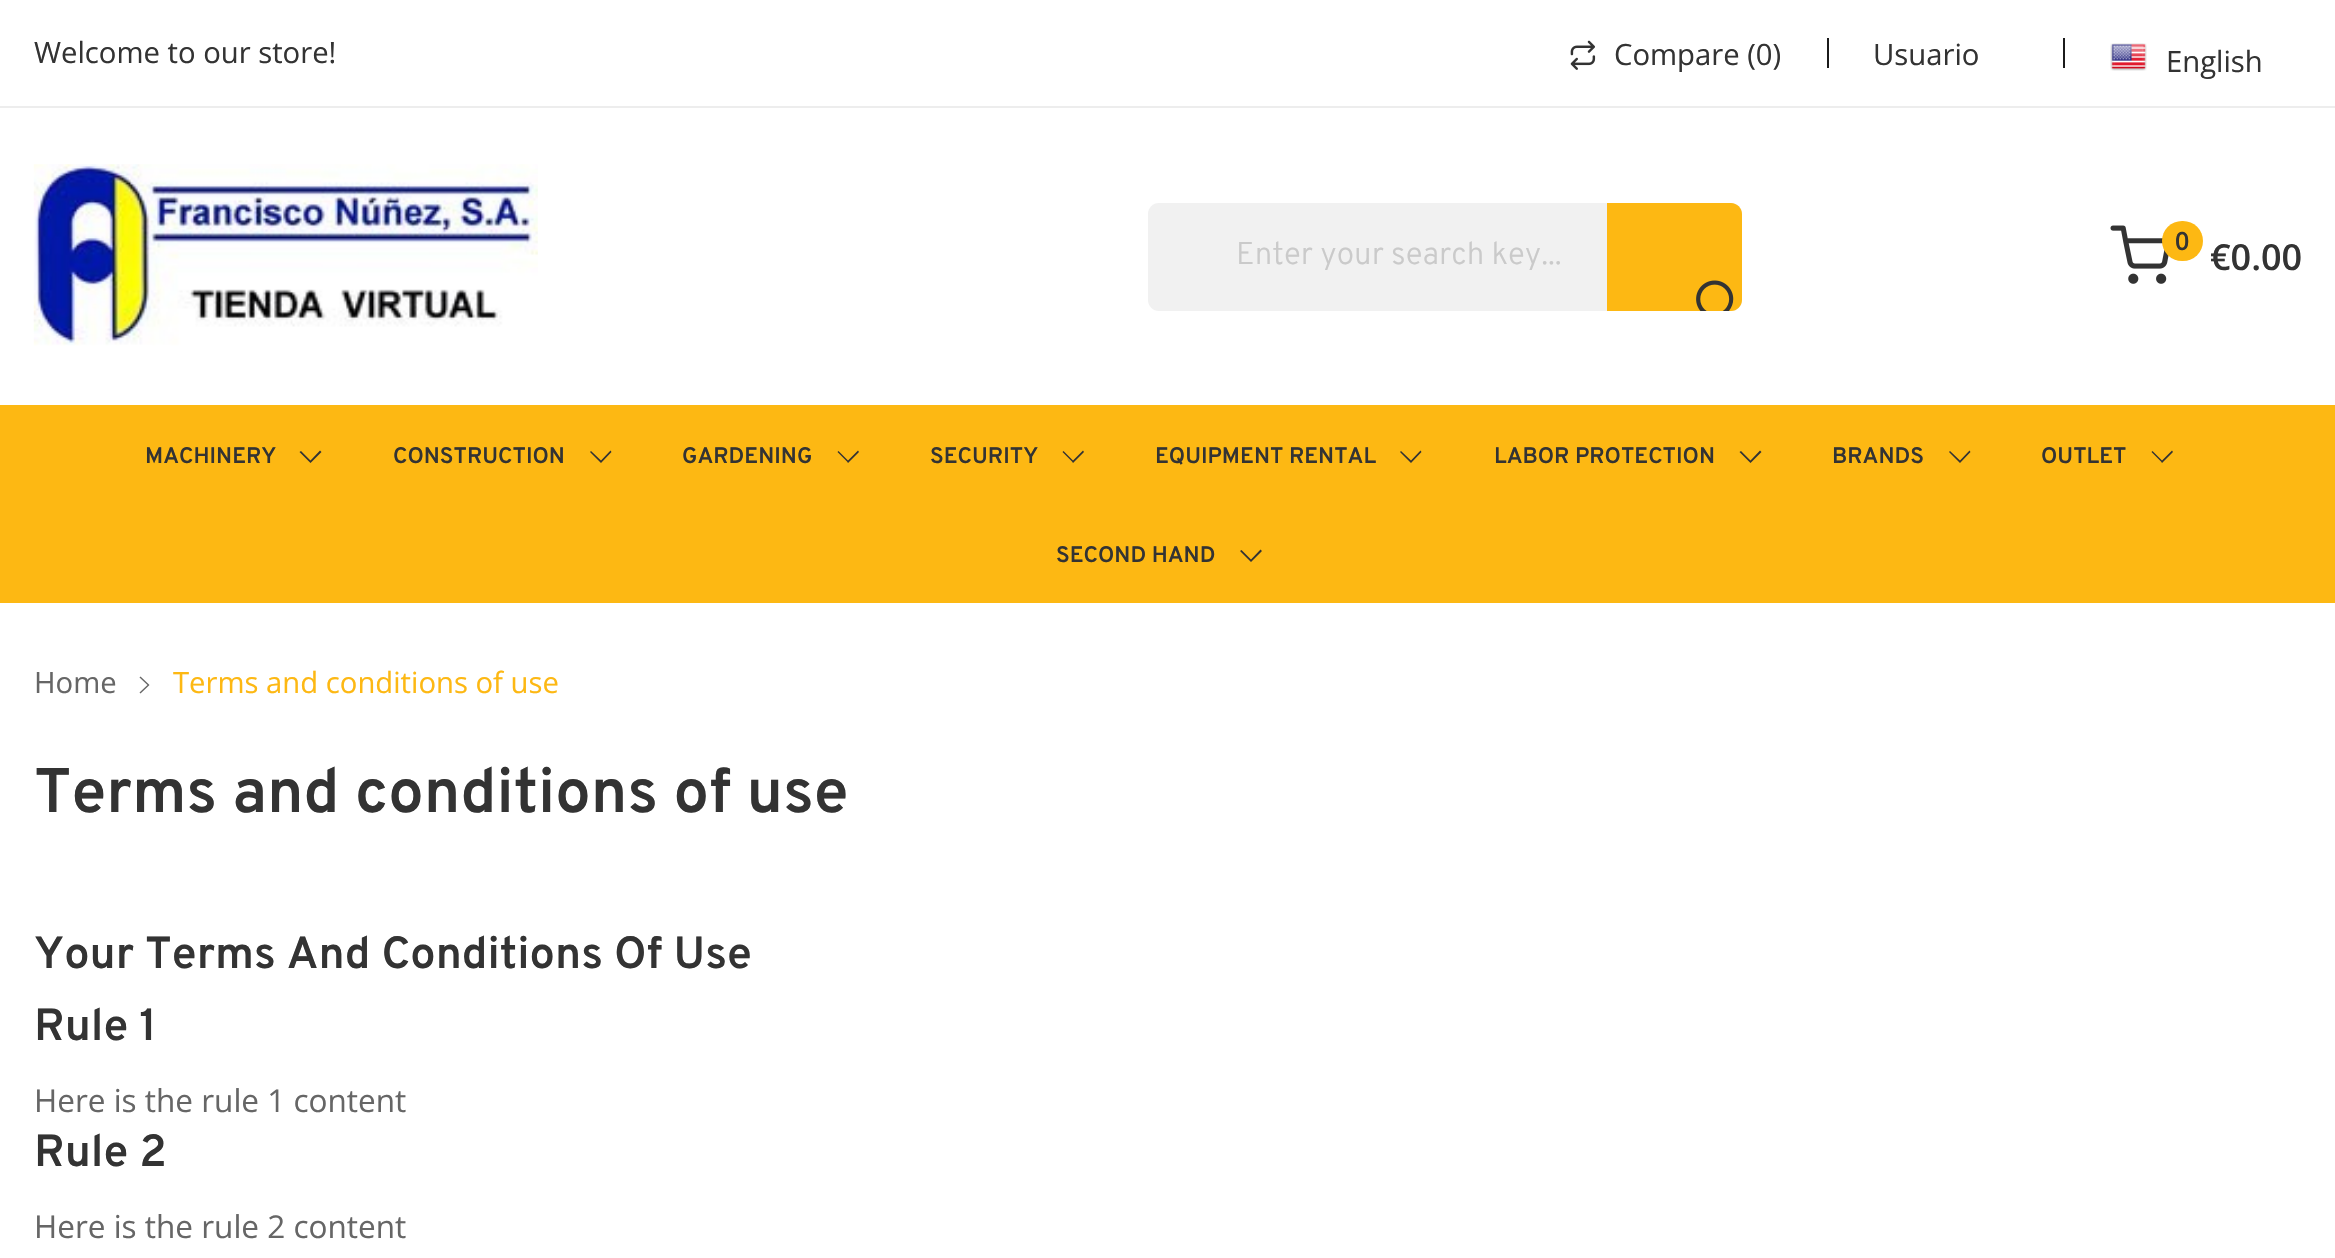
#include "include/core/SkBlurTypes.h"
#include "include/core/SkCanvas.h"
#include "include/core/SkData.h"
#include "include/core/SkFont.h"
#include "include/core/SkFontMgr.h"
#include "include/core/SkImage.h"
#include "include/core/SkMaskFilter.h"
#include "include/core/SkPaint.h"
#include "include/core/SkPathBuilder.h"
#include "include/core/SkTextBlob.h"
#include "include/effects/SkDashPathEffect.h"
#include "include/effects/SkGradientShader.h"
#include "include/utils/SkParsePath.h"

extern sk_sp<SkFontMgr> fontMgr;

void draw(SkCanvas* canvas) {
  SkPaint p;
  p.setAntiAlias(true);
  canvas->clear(SK_ColorWHITE);
  p.setColor(SkColorSetRGB(253, 184, 19));
  canvas->drawRect(SkRect::MakeLTRB(0, 405, 2335, 603), p);
  p.setColor(SkColorSetRGB(237, 237, 237));
  canvas->drawRect(SkRect::MakeLTRB(0, 106, 2335, 108), p);
  p.setColor(SkColorSetRGB(27, 27, 27));
  canvas->drawRect(SkRect::MakeLTRB(1827, 38, 1829, 68), p);
  canvas->drawImageRect(SkImages::DeferredFromEncodedData(SkData::MakeFromFileName("images/1.png")), SkRect::MakeLTRB(1570, 40, 1596, 70), SkSamplingOptions());
  canvas->drawRect(SkRect::MakeLTRB(2063, 38, 2065, 68), p);
  canvas->drawImageRect(SkImages::DeferredFromEncodedData(SkData::MakeFromFileName("images/2.png")), SkRect::MakeLTRB(2110, 43, 2147, 71), SkSamplingOptions());
  canvas->drawImageRect(SkImages::DeferredFromEncodedData(SkData::MakeFromFileName("images/3.png")), SkRect::MakeLTRB(33, 164, 538, 346), SkSamplingOptions());
  p.setColor(SkColorSetRGB(241, 241, 241));
  canvas->drawRoundRect(SkRect::MakeLTRB(1148, 203, 1742, 311), 11, 11, p);
  p.setColor(SkColorSetRGB(253, 184, 19));
  canvas->drawPath(SkPathBuilder().moveTo(1607, 203).lineTo(1731, 203).cubicTo(1737, 203, 1742, 208, 1742, 214).lineTo(1742, 300).cubicTo(1742, 306, 1737, 311, 1731, 311).lineTo(1607, 311).close().detach(), p);
  canvas->drawImageRect(SkImages::DeferredFromEncodedData(SkData::MakeFromFileName("images/4.png")), SkRect::MakeLTRB(1696, 280, 1734, 311), SkSamplingOptions());
  canvas->drawImageRect(SkImages::DeferredFromEncodedData(SkData::MakeFromFileName("images/5.png")), SkRect::MakeLTRB(2110, 225, 2169, 284), SkSamplingOptions());
  canvas->drawRoundRect(SkRect::MakeLTRB(2162, 221, 2203, 261), 20, 20, p);
  p.setColor(SkColorSetRGB(51, 51, 51));
  canvas->drawPath(SkPathBuilder().moveTo(309, 461.5f).lineTo(310.5f, 463).lineTo(321.5f, 452).lineTo(320, 450.5f).lineTo(310.5f, 460.5f).lineTo(301, 451).lineTo(299.5f, 452).close().detach(), p);
  canvas->drawPath(SkPathBuilder().moveTo(599.5f, 461.5f).lineTo(601, 463).lineTo(611.5f, 452).lineTo(610.5f, 450.5f).lineTo(601, 460.5f).lineTo(591, 451).lineTo(590, 452).close().detach(), p);
  canvas->drawPath(SkPathBuilder().moveTo(847, 461.5f).lineTo(848, 463).lineTo(859, 452).lineTo(858, 450.5f).lineTo(848, 460.5f).lineTo(838.5f, 451).lineTo(837.5f, 452).close().detach(), p);
  canvas->drawPath(SkPathBuilder().moveTo(1072, 461.5f).lineTo(1073, 463).lineTo(1084, 452).lineTo(1083, 450.5f).lineTo(1073, 460.5f).lineTo(1063.5f, 451).lineTo(1062.5f, 452).close().detach(), p);
  canvas->drawPath(SkPathBuilder().moveTo(1409.5f, 461.5f).lineTo(1411, 463).lineTo(1421.5f, 452).lineTo(1420.5f, 450.5f).lineTo(1411, 460.5f).lineTo(1401, 451).lineTo(1400, 452).close().detach(), p);
  canvas->drawPath(SkPathBuilder().moveTo(1749, 461.5f).lineTo(1750.5f, 463).lineTo(1761.5f, 452).lineTo(1760, 450.5f).lineTo(1750.5f, 460.5f).lineTo(1741, 451).lineTo(1739.5f, 452).close().detach(), p);
  canvas->drawPath(SkPathBuilder().moveTo(1958.5f, 461.5f).lineTo(1960, 463).lineTo(1970.5f, 452).lineTo(1969.5f, 450.5f).lineTo(1960, 460.5f).lineTo(1950, 451).lineTo(1949, 452).close().detach(), p);
  canvas->drawPath(SkPathBuilder().moveTo(2161, 461.5f).lineTo(2162, 463).lineTo(2173, 452).lineTo(2172, 450.5f).lineTo(2162, 460.5f).lineTo(2152.5f, 451).lineTo(2151.5f, 452).close().detach(), p);
  canvas->drawPath(SkPathBuilder().moveTo(1249.5f, 560.5f).lineTo(1251, 562).lineTo(1262, 551).lineTo(1260.5f, 549.5f).lineTo(1251, 559.5f).lineTo(1241.5f, 550).lineTo(1240, 551).close().detach(), p);
  p.setColor(SkColorSetRGB(102, 102, 102));
  canvas->drawPath(SkPathBuilder().moveTo(139.5f, 677.5f).lineTo(140.5f, 676.5f).lineTo(149.5f, 685).lineTo(140.5f, 693.5f).lineTo(139.5f, 692.5f).lineTo(147.5f, 685).close().detach(), p);
  SkFont font1(fontMgr->matchFamilyStyle("Open Sans", SkFontStyle::Normal()), 29.25f);
  font1.setSubpixel(true);
  p.setColor(SkColorSetRGB(51, 51, 51));
  canvas->drawString("Welcome to our store!", 34, 63, font1, p);
  canvas->drawString("Compare (0)", 1614, 65, font1, p);
  canvas->drawString("Usuario", 1873, 65, font1, p);
  canvas->drawString("English", 2166, 72, font1, p);
  SkFont font2(fontMgr->matchFamilyStyle("Overpass", SkFontStyle(300, SkFontStyle::kNormal_Width, SkFontStyle::kUpright_Slant)), 31.5f);
  font2.setSubpixel(true);
  p.setColor(SkColorSetRGB(202, 202, 202));
  canvas->drawString("Enter your search key...", 1236, 264, font2, p);
  SkFont font3(fontMgr->matchFamilyStyle("Open Sans", SkFontStyle(600, SkFontStyle::kNormal_Width, SkFontStyle::kUpright_Slant)), 25);
  font3.setSubpixel(true);
  p.setColor(SkColorSetRGB(51, 51, 51));
  canvas->drawString("0", 2175, 250, font3, p);
  SkFont font4(fontMgr->matchFamilyStyle("Open Sans", SkFontStyle(600, SkFontStyle::kNormal_Width, SkFontStyle::kUpright_Slant)), 36);
  font4.setSubpixel(true);
  canvas->drawString("€0.00", 2210, 270, font4, p);
  SkFont font5(fontMgr->matchFamilyStyle("Overpass", SkFontStyle(600, SkFontStyle::kNormal_Width, SkFontStyle::kUpright_Slant)), 22.5f);
  font5.setSubpixel(true);
  canvas->drawString("MACHINERY", 145, 463, font5, p);
  canvas->drawString("CONSTRUCTION", 393, 463, font5, p);
  canvas->drawString("GARDENING", 682, 463, font5, p);
  canvas->drawString("SECURITY", 930, 463, font5, p);
  canvas->drawString("EQUIPMENT RENTAL", 1155, 463, font5, p);
  canvas->drawString("LABOR PROTECTION", 1494, 463, font5, p);
  canvas->drawString("BRANDS", 1832, 463, font5, p);
  canvas->drawString("OUTLET", 2041, 463, font5, p);
  canvas->drawString("SECOND HAND", 1056, 562, font5, p);
  p.setColor(SkColorSetRGB(102, 102, 102));
  canvas->drawString("Home", 34, 693, font1, p);
  p.setColor(SkColorSetRGB(253, 184, 19));
  canvas->drawString("Terms and conditions of use", 173, 693, font1, p);
  SkFont font6(fontMgr->matchFamilyStyle("Overpass", SkFontStyle(600, SkFontStyle::kNormal_Width, SkFontStyle::kUpright_Slant)), 63);
  font6.setSubpixel(true);
  p.setColor(SkColorSetRGB(51, 51, 51));
  canvas->drawString("Terms and conditions of use", 34, 812, font6, p);
  SkFont font7(fontMgr->matchFamilyStyle("Overpass", SkFontStyle(600, SkFontStyle::kNormal_Width, SkFontStyle::kUpright_Slant)), 45);
  font7.setSubpixel(true);
  canvas->drawString("Your Terms And Conditions Of Use", 34, 968, font7, p);
  canvas->drawString("Rule 1", 34, 1040, font7, p);
  SkFont font8(fontMgr->matchFamilyStyle("Open Sans", SkFontStyle::Normal()), 31.5f);
  font8.setSubpixel(true);
  p.setColor(SkColorSetRGB(102, 102, 102));
  canvas->drawString("Here is the rule 1 content", 34, 1112, font8, p);
  p.setColor(SkColorSetRGB(51, 51, 51));
  canvas->drawString("Rule 2", 34, 1166, font7, p);
  p.setColor(SkColorSetRGB(102, 102, 102));
  canvas->drawString("Here is the rule 2 content", 34, 1238, font8, p);
}
